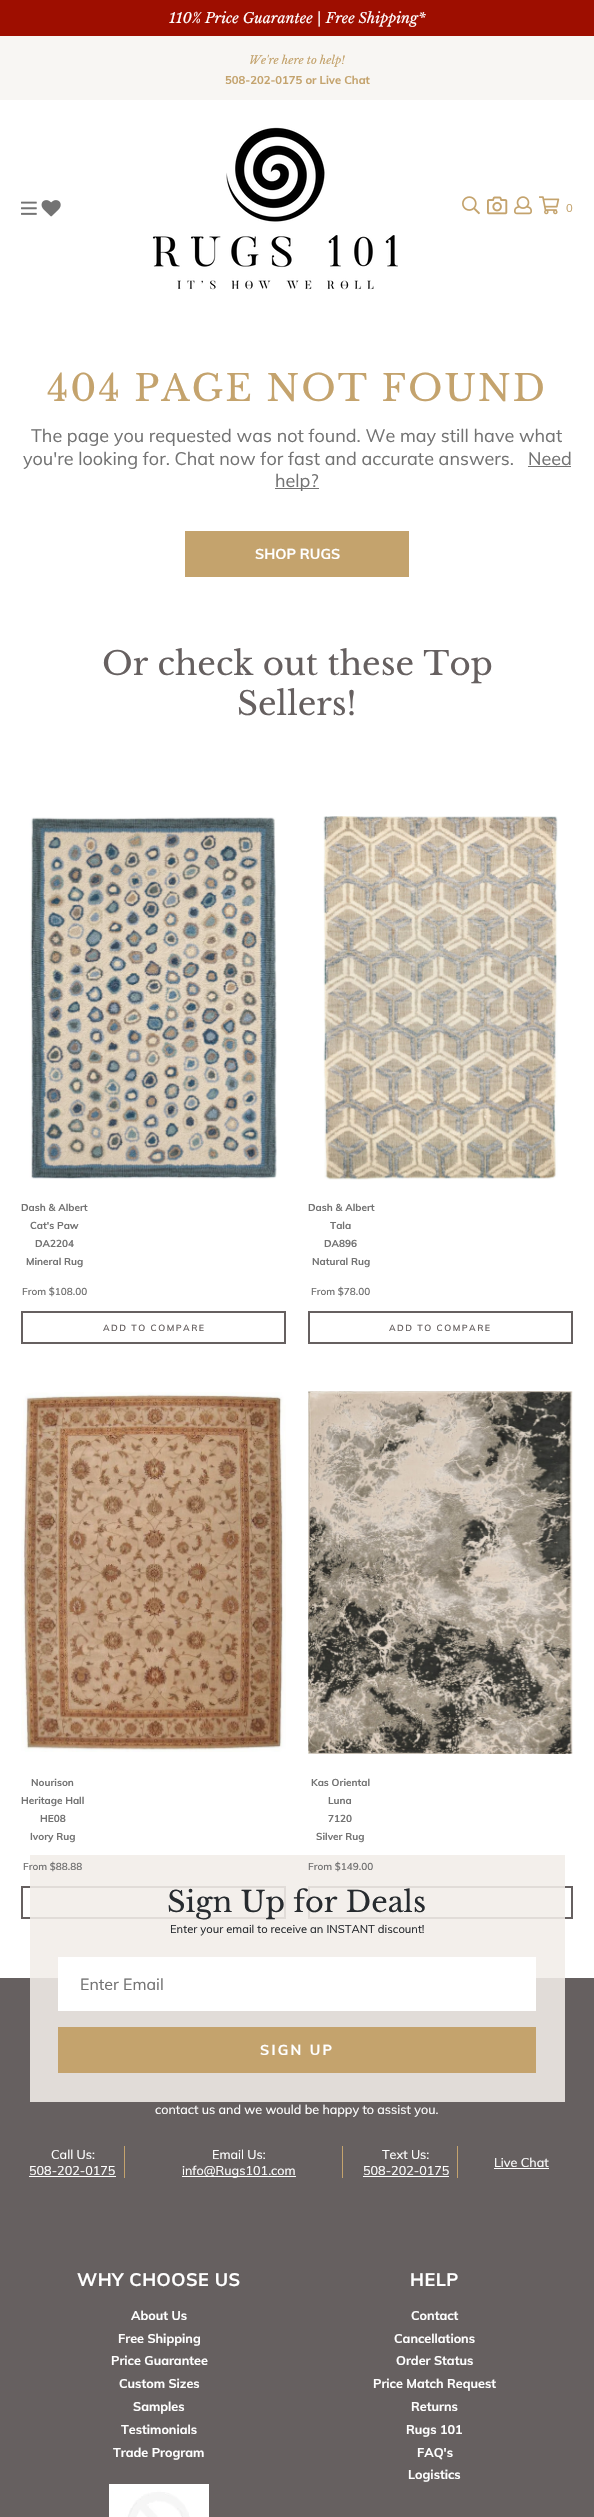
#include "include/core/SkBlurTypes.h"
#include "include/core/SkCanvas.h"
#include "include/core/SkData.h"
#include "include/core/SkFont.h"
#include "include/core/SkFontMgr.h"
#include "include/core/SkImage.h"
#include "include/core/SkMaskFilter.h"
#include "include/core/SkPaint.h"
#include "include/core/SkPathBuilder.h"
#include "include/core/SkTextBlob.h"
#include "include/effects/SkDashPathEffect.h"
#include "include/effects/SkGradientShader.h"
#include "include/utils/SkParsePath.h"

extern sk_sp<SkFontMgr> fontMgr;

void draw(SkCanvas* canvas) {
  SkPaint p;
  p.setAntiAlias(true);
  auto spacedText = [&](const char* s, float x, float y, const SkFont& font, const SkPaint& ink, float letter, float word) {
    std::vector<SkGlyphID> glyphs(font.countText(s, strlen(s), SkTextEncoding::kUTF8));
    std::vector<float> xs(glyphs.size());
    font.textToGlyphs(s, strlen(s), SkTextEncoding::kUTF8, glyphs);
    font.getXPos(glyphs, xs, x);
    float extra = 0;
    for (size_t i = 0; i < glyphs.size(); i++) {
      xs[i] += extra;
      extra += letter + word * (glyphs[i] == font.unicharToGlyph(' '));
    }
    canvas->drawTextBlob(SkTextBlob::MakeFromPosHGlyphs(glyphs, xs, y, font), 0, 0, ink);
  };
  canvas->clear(SK_ColorWHITE);
  p.setColor(SkColorSetRGB(158, 14, 0));
  canvas->drawRect(SkRect::MakeLTRB(0, 0, 594, 36), p);
  p.setColor(SkColorSetRGB(248, 246, 243));
  canvas->drawRect(SkRect::MakeLTRB(0, 36, 594, 100), p);
  canvas->drawImageRect(SkImages::DeferredFromEncodedData(SkData::MakeFromFileName("images/1.png")), SkRect::MakeLTRB(21, 201, 37, 215), SkSamplingOptions());
  canvas->drawImageRect(SkImages::DeferredFromEncodedData(SkData::MakeFromFileName("images/2.png")), SkRect::MakeLTRB(41, 200, 61, 217), SkSamplingOptions());
  canvas->drawImageRect(SkImages::DeferredFromEncodedData(SkData::MakeFromFileName("images/3.png")), SkRect::MakeLTRB(152, 127, 398, 290), SkSamplingOptions());
  canvas->drawImageRect(SkImages::DeferredFromEncodedData(SkData::MakeFromFileName("images/4.png")), SkRect::MakeLTRB(462, 196, 480, 215), SkSamplingOptions());
  canvas->drawImageRect(SkImages::DeferredFromEncodedData(SkData::MakeFromFileName("images/5.png")), SkRect::MakeLTRB(487, 196, 508, 215), SkSamplingOptions());
  canvas->drawImageRect(SkImages::DeferredFromEncodedData(SkData::MakeFromFileName("images/6.png")), SkRect::MakeLTRB(514, 196, 532, 215), SkSamplingOptions());
  canvas->drawImageRect(SkImages::DeferredFromEncodedData(SkData::MakeFromFileName("images/7.png")), SkRect::MakeLTRB(539, 196, 560, 215), SkSamplingOptions());
  p.setColor(SkColorSetRGB(115, 115, 115));
  canvas->drawRect(SkRect::MakeLTRB(528, 466, 571, 467), p);
  canvas->drawRect(SkRect::MakeLTRB(275, 488, 319, 489), p);
  p.setColor(SkColorSetRGB(196, 163, 109));
  canvas->drawRect(SkRect::MakeLTRB(185, 531, 409, 577), p);
  canvas->drawImageRect(SkImages::DeferredFromEncodedData(SkData::MakeFromFileName("images/8.png")), SkRect::MakeLTRB(29, 817, 277, 1179), SkSamplingOptions());
  p.setStyle(SkPaint::kStroke_Style);
  p.setStrokeWidth(2);
  p.setColor(SkColorSetRGB(102, 96, 96));
  canvas->drawRect(SkRect::MakeLTRB(22, 1312, 285, 1343), p);
  canvas->drawImageRect(SkImages::DeferredFromEncodedData(SkData::MakeFromFileName("images/9.png")), SkRect::MakeLTRB(323, 816, 558, 1180), SkSamplingOptions());
  canvas->drawRect(SkRect::MakeLTRB(309, 1312, 572, 1343), p);
  canvas->drawImageRect(SkImages::DeferredFromEncodedData(SkData::MakeFromFileName("images/10.png")), SkRect::MakeLTRB(21, 1392, 286, 1752), SkSamplingOptions());
  canvas->drawRect(SkRect::MakeLTRB(22, 1887, 285, 1918), p);
  canvas->drawImageRect(SkImages::DeferredFromEncodedData(SkData::MakeFromFileName("images/11.png")), SkRect::MakeLTRB(308, 1391, 573, 1754), SkSamplingOptions());
  canvas->drawRect(SkRect::MakeLTRB(309, 1887, 572, 1918), p);
  p.setStyle(SkPaint::kFill_Style);
  canvas->drawRect(SkRect::MakeLTRB(0, 1978, 594, 2517), p);
  p.setColor(SkColorSetARGB(224, 241, 237, 232));
  canvas->drawRect(SkRect::MakeLTRB(30, 1855, 565, 2102), p);
  p.setColor(SK_ColorWHITE);
  canvas->drawRect(SkRect::MakeLTRB(58, 1957, 536, 2011), p);
  p.setColor(SkColorSetRGB(196, 163, 109));
  canvas->drawRect(SkRect::MakeLTRB(58, 2027, 536, 2073), p);
  canvas->drawRect(SkRect::MakeLTRB(124, 2146, 125, 2178), p);
  p.setColor(SK_ColorWHITE);
  canvas->drawRect(SkRect::MakeLTRB(29, 2176, 116, 2177), p);
  p.setColor(SkColorSetRGB(196, 163, 109));
  canvas->drawRect(SkRect::MakeLTRB(342, 2146, 343, 2178), p);
  p.setColor(SK_ColorWHITE);
  canvas->drawRect(SkRect::MakeLTRB(182, 2176, 296, 2177), p);
  p.setColor(SkColorSetRGB(196, 163, 109));
  canvas->drawRect(SkRect::MakeLTRB(457, 2146, 458, 2178), p);
  p.setColor(SK_ColorWHITE);
  canvas->drawRect(SkRect::MakeLTRB(363, 2176, 449, 2177), p);
  canvas->drawRect(SkRect::MakeLTRB(494, 2168, 549, 2169), p);
  canvas->drawImageRect(SkImages::DeferredFromEncodedData(SkData::MakeFromFileName("images/12.png")), SkRect::MakeLTRB(109, 2484, 209, 2517), SkSamplingOptions());
  SkFont font1(fontMgr->matchFamilyStyle("Libre Baskerville", SkFontStyle::Italic()), 14.25f);
  font1.setSubpixel(true);
  canvas->drawString("110% Price Guarantee | Free Shipping*", 169, 23, font1, p);
  SkFont font2(fontMgr->matchFamilyStyle("Libre Baskerville", SkFontStyle::Italic()), 11.25f);
  font2.setSubpixel(true);
  p.setColor(SkColorSetRGB(196, 163, 109));
  canvas->drawString("We're here to help!", 249, 64, font2, p);
  SkFont font3(fontMgr->matchFamilyStyle("Muli", SkFontStyle::Bold()), 11.25f);
  font3.setSubpixel(true);
  canvas->drawString("508-202-0175 or Live Chat", 225, 84, font3, p);
  SkFont font4(fontMgr->matchFamilyStyle("Muli", SkFontStyle::Normal()), 11.25f);
  font4.setSubpixel(true);
  canvas->drawString("0", 566, 212, font4, p);
  SkFont font5(fontMgr->matchFamilyStyle("Libre Baskerville", SkFontStyle::Normal()), 36.5f);
  font5.setSubpixel(true);
  spacedText("404 PAGE NOT FOUND", 47, 401, font5, p, 2, 0);
  SkFont font6(fontMgr->matchFamilyStyle("Muli", SkFontStyle::Normal()), 18);
  font6.setSubpixel(true);
  p.setColor(SkColorSetRGB(115, 115, 115));
  canvas->drawString("The page you requested was not found. We may still have what", 31, 442, font6, p);
  canvas->drawString("you're looking for. Chat now for fast and accurate answers.", 23, 465, font6, p);
  canvas->drawString("Need", 528, 465, font6, p);
  canvas->drawString("help?", 275, 487, font6, p);
  SkFont font7(fontMgr->matchFamilyStyle("Muli", SkFontStyle::Bold()), 14.25f);
  font7.setSubpixel(true);
  p.setColor(SK_ColorWHITE);
  canvas->drawString("SHOP RUGS", 255, 559, font7, p);
  SkFont font8(fontMgr->matchFamilyStyle("Libre Baskerville", SkFontStyle::Normal()), 32.5f);
  font8.setSubpixel(true);
  p.setColor(SkColorSetRGB(102, 96, 96));
  canvas->drawString("Or check out these Top", 102, 675, font8, p);
  canvas->drawString("Sellers!", 237, 715, font8, p);
  SkFont font9(fontMgr->matchFamilyStyle("Muli", SkFontStyle::Bold()), 10);
  font9.setSubpixel(true);
  p.setColor(SkColorSetRGB(115, 115, 115));
  canvas->drawString("Dash & Albert", 21, 1211, font9, p);
  canvas->drawString("Cat's Paw", 30, 1229, font9, p);
  canvas->drawString("DA2204", 35, 1247, font9, p);
  canvas->drawString("Mineral Rug", 26, 1265, font9, p);
  SkFont font10(fontMgr->matchFamilyStyle("Muli", SkFontStyle(600, SkFontStyle::kNormal_Width, SkFontStyle::kUpright_Slant)), 10);
  font10.setSubpixel(true);
  canvas->drawString("From $108.00", 22, 1295, font10, p);
  SkFont font11(fontMgr->matchFamilyStyle("Muli", SkFontStyle(600, SkFontStyle::kNormal_Width, SkFontStyle::kUpright_Slant)), 8.9f);
  font11.setSubpixel(true);
  p.setColor(SkColorSetRGB(102, 96, 96));
  spacedText("ADD TO COMPARE", 103, 1331, font11, p, 1.5f, 0);
  p.setColor(SkColorSetRGB(115, 115, 115));
  canvas->drawString("Dash & Albert", 308, 1211, font9, p);
  canvas->drawString("Tala", 330, 1229, font9, p);
  canvas->drawString("DA896", 324, 1247, font9, p);
  canvas->drawString("Natural Rug", 312, 1265, font9, p);
  canvas->drawString("From $78.00", 311, 1295, font10, p);
  p.setColor(SkColorSetRGB(102, 96, 96));
  spacedText("ADD TO COMPARE", 389, 1331, font11, p, 1.5f, 0);
  p.setColor(SkColorSetRGB(115, 115, 115));
  canvas->drawString("Nourison", 31, 1786, font9, p);
  canvas->drawString("Heritage Hall", 21, 1804, font9, p);
  canvas->drawString("HE08", 40, 1822, font9, p);
  canvas->drawString("Ivory Rug", 30, 1840, font9, p);
  canvas->drawString("From $88.88", 23, 1870, font10, p);
  canvas->drawString("Kas Oriental", 311, 1786, font9, p);
  canvas->drawString("Luna", 328, 1804, font9, p);
  canvas->drawString("7120", 328, 1822, font9, p);
  canvas->drawString("Silver Rug", 316, 1840, font9, p);
  canvas->drawString("From $149.00", 308, 1870, font10, p);
  SkFont font12(fontMgr->matchFamilyStyle("Libre Baskerville", SkFontStyle::Normal()), 28.75f);
  font12.setSubpixel(true);
  p.setColor(SkColorSetRGB(39, 43, 47));
  canvas->drawString("Sign Up for Deals", 167, 1912, font12, p);
  canvas->drawString("Enter your email to receive an INSTANT discount!", 170, 1933, font4, p);
  SkFont font13(fontMgr->matchFamilyStyle("Muli", SkFontStyle::Normal()), 16);
  font13.setSubpixel(true);
  p.setColor(SkColorSetRGB(115, 115, 115));
  canvas->drawString("Enter Email", 80, 1990, font13, p);
  p.setColor(SK_ColorWHITE);
  spacedText("SIGN UP", 260, 2055, font7, p, 2.25f, 0);
  SkFont font14(fontMgr->matchFamilyStyle("Muli", SkFontStyle::Normal()), 12.6f);
  font14.setSubpixel(true);
  canvas->drawString("contact us and we would be happy to assist you.", 155, 2114, font14, p);
  canvas->drawString("Call Us:", 51, 2159, font14, p);
  canvas->drawString("508-202-0175", 29, 2175, font14, p);
  canvas->drawString("Email Us:", 212, 2159, font14, p);
  canvas->drawString("info@Rugs101.com", 182, 2175, font14, p);
  canvas->drawString("Text Us:", 382, 2159, font14, p);
  canvas->drawString("508-202-0175", 363, 2175, font14, p);
  canvas->drawString("Live Chat", 494, 2167, font14, p);
  SkFont font15(fontMgr->matchFamilyStyle("Muli", SkFontStyle::Bold()), 18);
  font15.setSubpixel(true);
  spacedText("WHY CHOOSE US", 77, 2286, font15, p, 0.5f, 0);
  SkFont font16(fontMgr->matchFamilyStyle("Muli", SkFontStyle::Bold()), 12.6f);
  font16.setSubpixel(true);
  canvas->drawString("About Us", 131, 2320, font16, p);
  canvas->drawString("Free Shipping", 118, 2343, font16, p);
  canvas->drawString("Price Guarantee", 111, 2365, font16, p);
  canvas->drawString("Custom Sizes", 119, 2388, font16, p);
  canvas->drawString("Samples", 133, 2411, font16, p);
  canvas->drawString("Testimonials", 121, 2434, font16, p);
  canvas->drawString("Trade Program", 113, 2457, font16, p);
  spacedText("HELP", 410, 2286, font15, p, 0.5f, 0);
  canvas->drawString("Contact", 411, 2320, font16, p);
  canvas->drawString("Cancellations", 394, 2343, font16, p);
  canvas->drawString("Order Status", 396, 2365, font16, p);
  canvas->drawString("Price Match Request", 373, 2388, font16, p);
  canvas->drawString("Returns", 411, 2411, font16, p);
  canvas->drawString("Rugs 101", 406, 2434, font16, p);
  canvas->drawString("FAQ's", 417, 2457, font16, p);
  canvas->drawString("Logistics", 408, 2479, font16, p);
}
